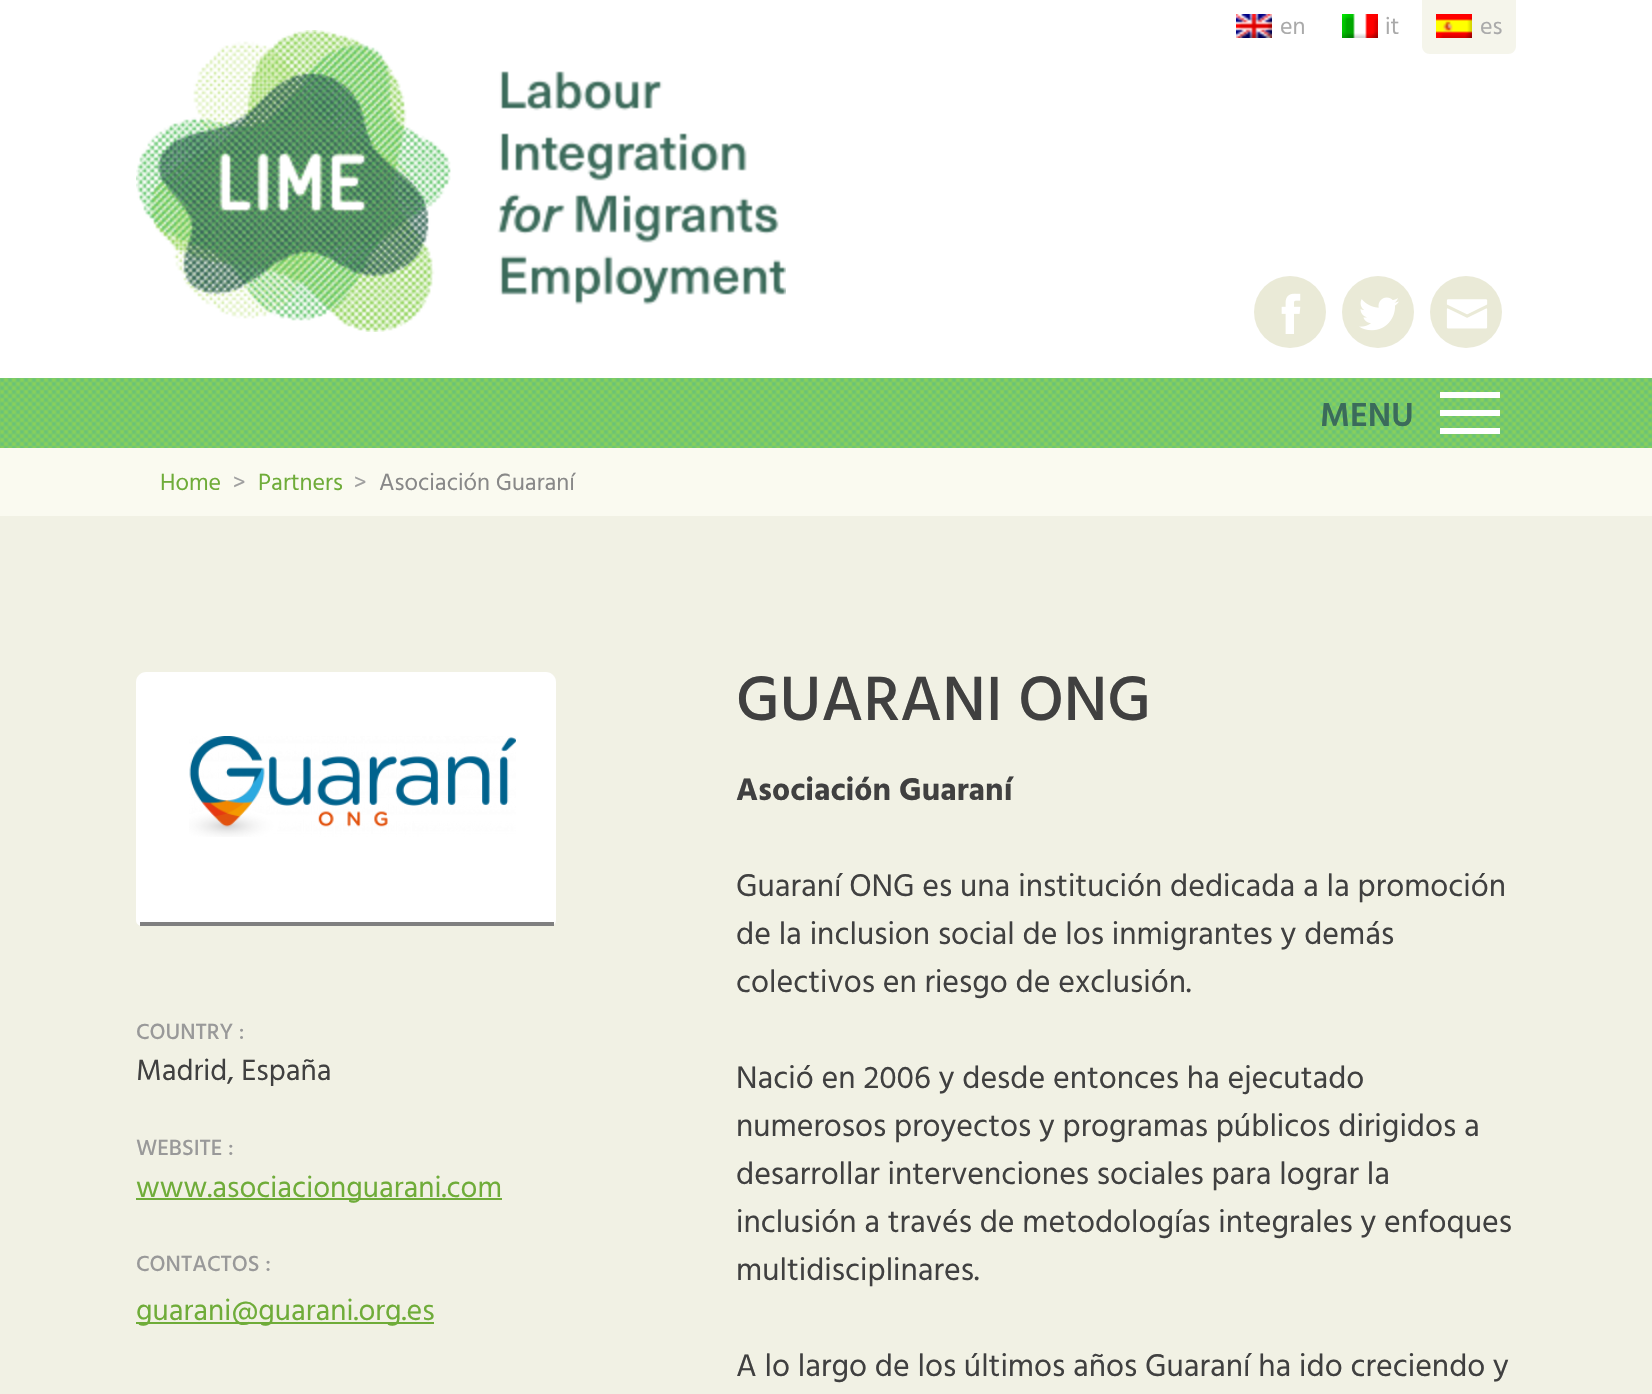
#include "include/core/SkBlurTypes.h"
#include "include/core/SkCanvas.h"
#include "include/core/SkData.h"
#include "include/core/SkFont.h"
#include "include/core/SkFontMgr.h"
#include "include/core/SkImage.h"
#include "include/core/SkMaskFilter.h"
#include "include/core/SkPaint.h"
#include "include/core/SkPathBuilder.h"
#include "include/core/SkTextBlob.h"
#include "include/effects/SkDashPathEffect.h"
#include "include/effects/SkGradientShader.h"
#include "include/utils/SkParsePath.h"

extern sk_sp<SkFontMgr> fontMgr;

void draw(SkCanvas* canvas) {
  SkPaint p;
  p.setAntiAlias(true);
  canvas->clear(SkColorSetRGB(241, 241, 228));
  p.setColor(SK_ColorWHITE);
  canvas->drawRect(SkRect::MakeLTRB(0, 0, 1652, 378), p);
  canvas->drawImageRect(SkImages::DeferredFromEncodedData(SkData::MakeFromFileName("images/1.png")), SkRect::MakeLTRB(1236, 14, 1272, 38), SkSamplingOptions());
  canvas->drawImageRect(SkImages::DeferredFromEncodedData(SkData::MakeFromFileName("images/2.png")), SkRect::MakeLTRB(1342, 14, 1378, 38), SkSamplingOptions());
  p.setColor(SkColorSetRGB(245, 245, 235));
  canvas->drawPath(SkPathBuilder().moveTo(1422, 0).lineTo(1516, 0).lineTo(1516, 46).cubicTo(1516, 50.5f, 1512.5f, 54, 1508, 54).lineTo(1430, 54).cubicTo(1425.5f, 54, 1422, 50.5f, 1422, 46).close().detach(), p);
  canvas->drawImageRect(SkImages::DeferredFromEncodedData(SkData::MakeFromFileName("images/3.png")), SkRect::MakeLTRB(1436, 14, 1472, 38), SkSamplingOptions());
  canvas->drawImageRect(SkImages::DeferredFromEncodedData(SkData::MakeFromFileName("images/4.png")), SkRect::MakeLTRB(136, 30, 786, 332), SkSamplingOptions());
  p.setColor(SkColorSetRGB(234, 234, 215));
  canvas->drawCircle(1290, 312, 36, p);
  canvas->drawImageRect(SkImages::DeferredFromEncodedData(SkData::MakeFromFileName("images/5.png")), SkRect::MakeLTRB(1281, 293, 1301, 334), SkSamplingOptions());
  canvas->drawCircle(1378, 312, 36, p);
  canvas->drawImageRect(SkImages::DeferredFromEncodedData(SkData::MakeFromFileName("images/6.png")), SkRect::MakeLTRB(1359, 297, 1399, 331), SkSamplingOptions());
  canvas->drawCircle(1466, 312, 36, p);
  canvas->drawImageRect(SkImages::DeferredFromEncodedData(SkData::MakeFromFileName("images/7.png")), SkRect::MakeLTRB(1446, 299, 1488, 329), SkSamplingOptions());
  canvas->drawImageRect(SkImages::DeferredFromEncodedData(SkData::MakeFromFileName("images/8.png")), SkRect::MakeLTRB(0, 378, 1652, 448), SkSamplingOptions());
  p.setColor(SK_ColorWHITE);
  canvas->drawRect(SkRect::MakeLTRB(1440, 410, 1500, 416), p);
  canvas->drawRect(SkRect::MakeLTRB(1440, 392, 1500, 398), p);
  canvas->drawRect(SkRect::MakeLTRB(1440, 428, 1500, 434), p);
  p.setColor(SkColorSetRGB(250, 250, 240));
  canvas->drawRect(SkRect::MakeLTRB(0, 448, 1652, 516), p);
  p.setColor(SK_ColorWHITE);
  canvas->drawPath(SkPathBuilder().moveTo(146, 672).lineTo(546, 672).cubicTo(551.5f, 672, 556, 676.5f, 556, 682).lineTo(556, 920).cubicTo(556, 923.5f, 553.5f, 926, 550, 926).lineTo(142, 926).cubicTo(138.5f, 926, 136, 923.5f, 136, 920).lineTo(136, 682).cubicTo(136, 676.5f, 140.5f, 672, 146, 672).close().detach(), p);
  p.setColor(SkColorSetRGB(128, 128, 128));
  canvas->drawRect(SkRect::MakeLTRB(140, 922, 554, 926), p);
  canvas->drawImageRect(SkImages::DeferredFromEncodedData(SkData::MakeFromFileName("images/9.png")), SkRect::MakeLTRB(189, 736, 516, 837), SkSamplingOptions());
  p.setColor(SkColorSetRGB(111, 172, 57));
  canvas->drawRect(SkRect::MakeLTRB(136, 1198, 502, 1200), p);
  canvas->drawRect(SkRect::MakeLTRB(136, 1322, 434, 1324), p);
  SkFont font1(fontMgr->matchFamilyStyle("Hind", SkFontStyle::Normal()), 24);
  font1.setSubpixel(true);
  p.setColor(SkColorSetRGB(170, 170, 170));
  canvas->drawString("en", 1280, 34, font1, p);
  canvas->drawString("it", 1385, 34, font1, p);
  canvas->drawString("es", 1480, 34, font1, p);
  SkFont font2(fontMgr->matchFamilyStyle("Hind", SkFontStyle(600, SkFontStyle::kNormal_Width, SkFontStyle::kUpright_Slant)), 34);
  font2.setSubpixel(true);
  p.setColor(SkColorSetRGB(59, 107, 91));
  canvas->drawString("MENU", 1320, 426, font2, p);
  p.setColor(SkColorSetRGB(111, 172, 57));
  canvas->drawString("Home", 160, 490, font1, p);
  p.setColor(SkColorSetRGB(160, 160, 160));
  canvas->drawString(">", 233, 490, font1, p);
  p.setColor(SkColorSetRGB(111, 172, 57));
  canvas->drawString("Partners", 258, 490, font1, p);
  p.setColor(SkColorSetRGB(160, 160, 160));
  canvas->drawString(">", 354, 490, font1, p);
  p.setColor(SkColorSetRGB(136, 136, 136));
  canvas->drawString("Asociación Guaraní", 379, 490, font1, p);
  SkFont font3(fontMgr->matchFamilyStyle("Hind", SkFontStyle(500, SkFontStyle::kNormal_Width, SkFontStyle::kUpright_Slant)), 22.5f);
  font3.setSubpixel(true);
  p.setColor(SkColorSetRGB(153, 153, 153));
  canvas->drawString("COUNTRY :", 136, 1039, font3, p);
  SkFont font4(fontMgr->matchFamilyStyle("Hind", SkFontStyle::Normal()), 30);
  font4.setSubpixel(true);
  p.setColor(SkColorSetRGB(64, 64, 64));
  canvas->drawString("Madrid, España", 136, 1080, font4, p);
  p.setColor(SkColorSetRGB(153, 153, 153));
  canvas->drawString("WEBSITE :", 136, 1155, font3, p);
  p.setColor(SkColorSetRGB(111, 172, 57));
  canvas->drawString("www.asociacionguarani.com", 136, 1197, font4, p);
  p.setColor(SkColorSetRGB(153, 153, 153));
  canvas->drawString("CONTACTOS :", 136, 1271, font3, p);
  p.setColor(SkColorSetRGB(111, 172, 57));
  canvas->drawString("guarani@guarani.org.es", 136, 1320, font4, p);
  SkFont font5(fontMgr->matchFamilyStyle("Hind", SkFontStyle(500, SkFontStyle::kNormal_Width, SkFontStyle::kUpright_Slant)), 64);
  font5.setSubpixel(true);
  p.setColor(SkColorSetRGB(64, 64, 64));
  canvas->drawString("GUARANI ONG", 736, 720, font5, p);
  SkFont font6(fontMgr->matchFamilyStyle("Hind", SkFontStyle::Bold()), 32);
  font6.setSubpixel(true);
  canvas->drawString("Asociación Guaraní", 736, 800, font6, p);
  SkFont font7(fontMgr->matchFamilyStyle("Hind", SkFontStyle::Normal()), 32);
  font7.setSubpixel(true);
  canvas->drawString("Guaraní ONG es una institución dedicada a la promoción", 736, 896, font7, p);
  canvas->drawString("de la inclusion social de los inmigrantes y demás", 736, 944, font7, p);
  canvas->drawString("colectivos en riesgo de exclusión.", 736, 992, font7, p);
  canvas->drawString("Nació en 2006 y desde entonces ha ejecutado", 736, 1088, font7, p);
  canvas->drawString("numerosos proyectos y programas públicos dirigidos a", 736, 1136, font7, p);
  canvas->drawString("desarrollar intervenciones sociales para lograr la", 736, 1184, font7, p);
  canvas->drawString("inclusión a través de metodologías integrales y enfoques", 736, 1232, font7, p);
  canvas->drawString("multidisciplinares.", 736, 1280, font7, p);
  canvas->drawString("A lo largo de los últimos años Guaraní ha ido creciendo y", 736, 1376, font7, p);
}
